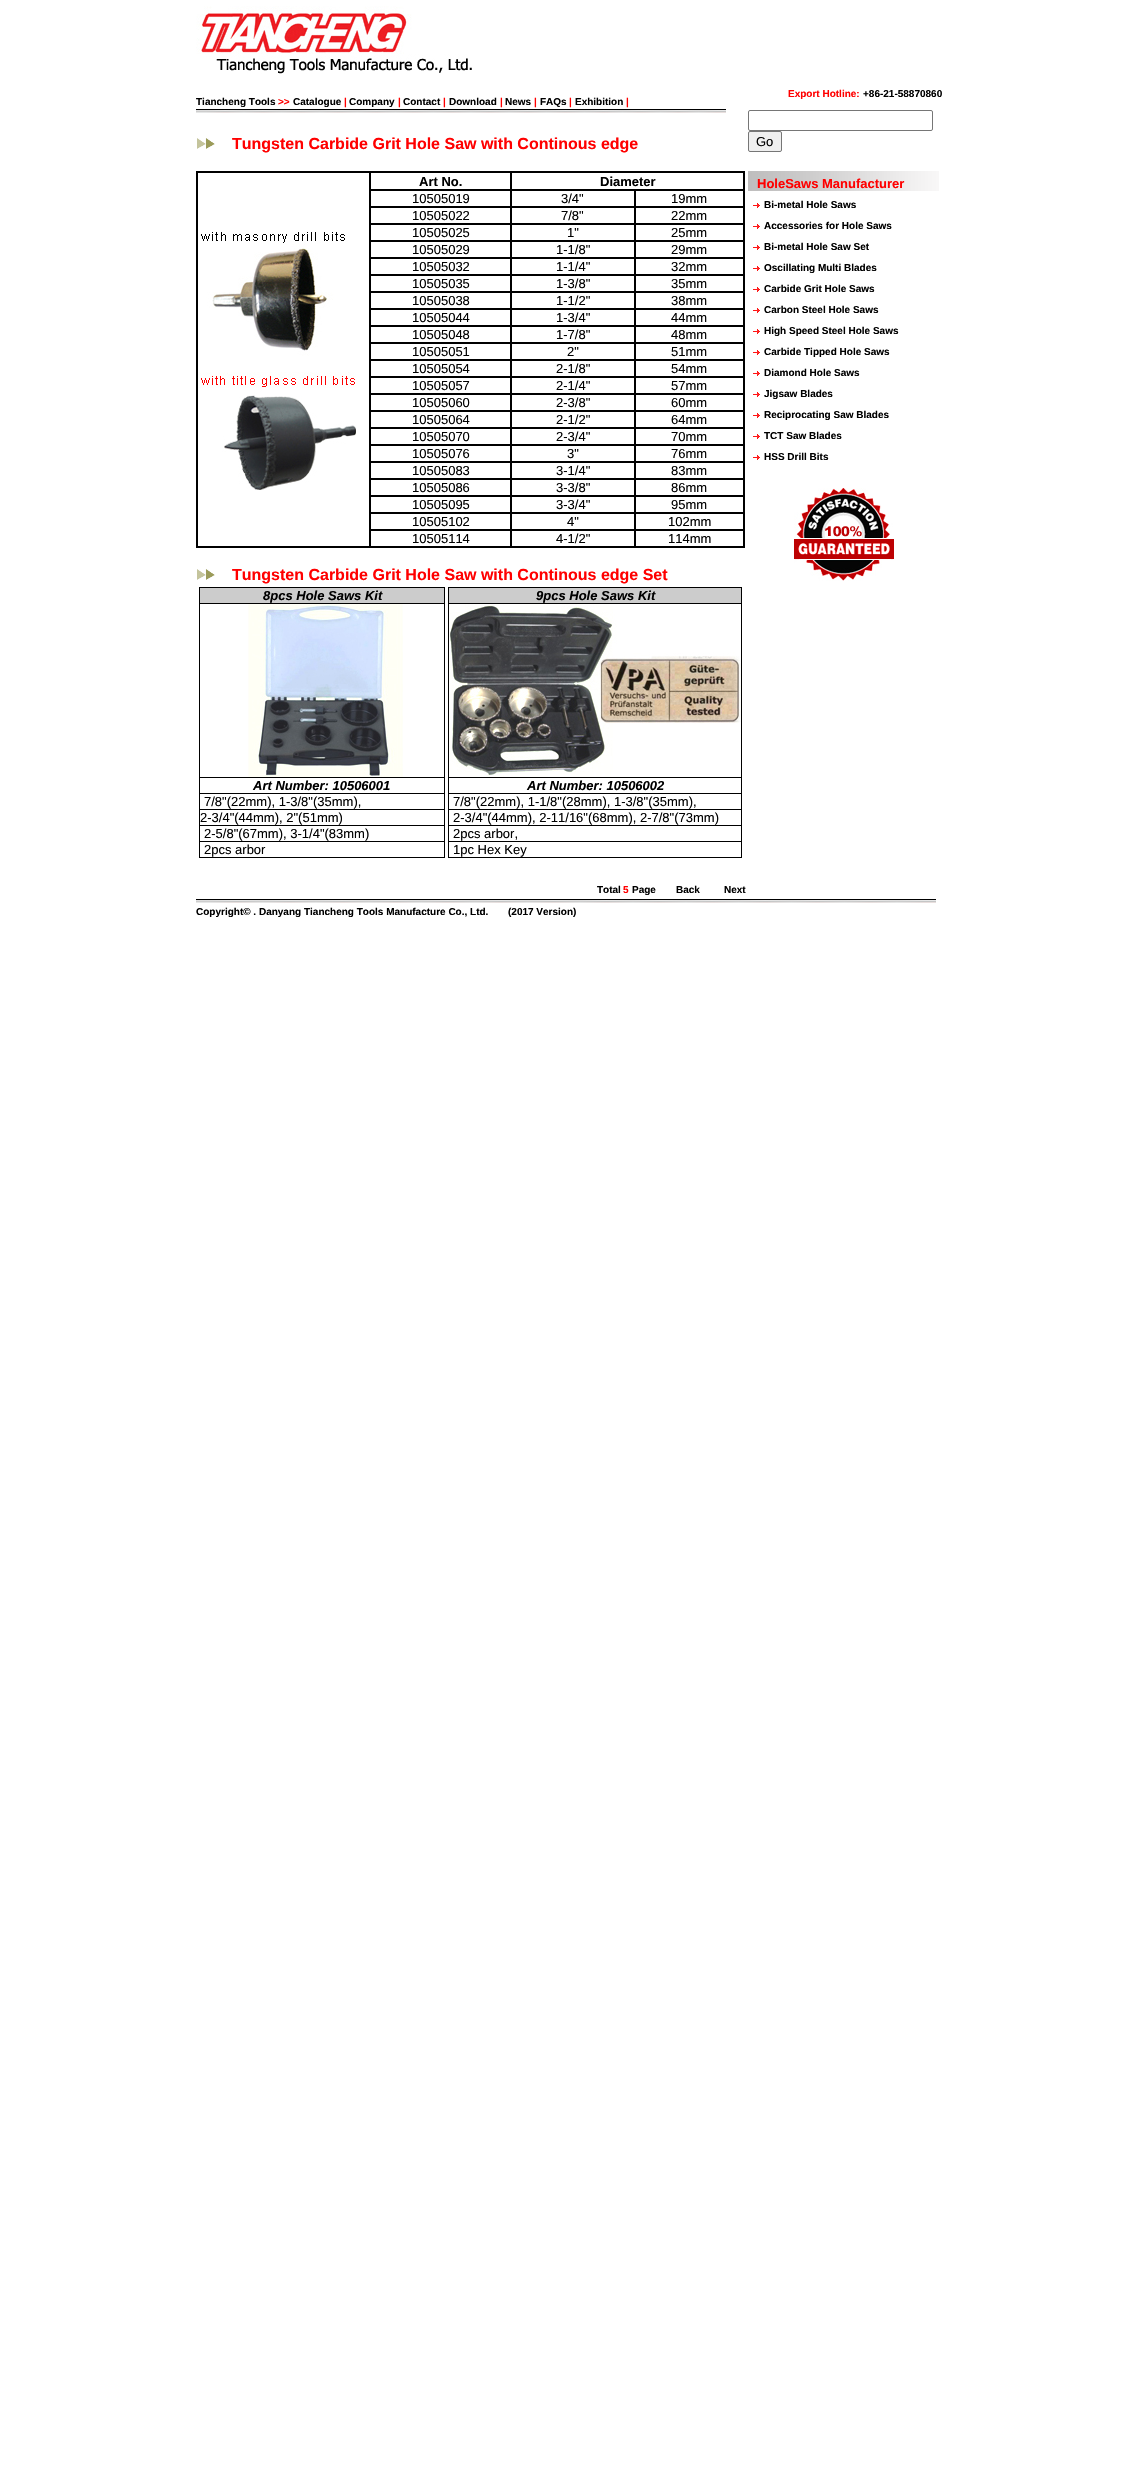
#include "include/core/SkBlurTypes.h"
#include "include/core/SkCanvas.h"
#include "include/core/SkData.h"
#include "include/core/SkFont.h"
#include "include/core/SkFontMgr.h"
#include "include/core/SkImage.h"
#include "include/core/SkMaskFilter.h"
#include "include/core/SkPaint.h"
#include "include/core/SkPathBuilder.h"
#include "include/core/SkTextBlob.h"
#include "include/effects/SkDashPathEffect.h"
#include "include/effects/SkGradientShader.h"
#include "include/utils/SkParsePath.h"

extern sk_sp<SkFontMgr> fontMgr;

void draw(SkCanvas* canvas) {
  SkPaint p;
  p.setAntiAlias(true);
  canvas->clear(SK_ColorWHITE);
  canvas->drawImageRect(SkImages::DeferredFromEncodedData(SkData::MakeFromFileName("images/1.png")), SkRect::MakeLTRB(196, 6, 472, 74), SkSamplingOptions());
  p.setStyle(SkPaint::kStroke_Style);
  p.setStrokeWidth(1);
  p.setColor(SkColorSetRGB(118, 118, 118));
  canvas->drawRoundRect(SkRect::MakeLTRB(748.5f, 110.5f, 932.5f, 130.5f), 1.5f, 1.5f, p);
  p.setStyle(SkPaint::kFill_Style);
  p.setColor(SkColorSetRGB(239, 239, 239));
  canvas->drawRoundRect(SkRect::MakeLTRB(748.5f, 131.5f, 781.5f, 151.5f), 1.5f, 1.5f, p);
  p.setStyle(SkPaint::kStroke_Style);
  p.setColor(SkColorSetRGB(118, 118, 118));
  canvas->drawRoundRect(SkRect::MakeLTRB(748.5f, 131.5f, 781.5f, 151.5f), 1.5f, 1.5f, p);
  canvas->drawImageRect(SkImages::DeferredFromEncodedData(SkData::MakeFromFileName("images/2.png")), SkRect::MakeLTRB(748, 171, 939, 191), SkSamplingOptions());
  canvas->drawImageRect(SkImages::DeferredFromEncodedData(SkData::MakeFromFileName("images/3.png")), SkRect::MakeLTRB(753, 203, 760, 208), SkSamplingOptions());
  canvas->drawImageRect(SkImages::DeferredFromEncodedData(SkData::MakeFromFileName("images/3.png")), SkRect::MakeLTRB(753, 224, 760, 229), SkSamplingOptions());
  canvas->drawImageRect(SkImages::DeferredFromEncodedData(SkData::MakeFromFileName("images/3.png")), SkRect::MakeLTRB(753, 245, 760, 250), SkSamplingOptions());
  canvas->drawImageRect(SkImages::DeferredFromEncodedData(SkData::MakeFromFileName("images/3.png")), SkRect::MakeLTRB(753, 266, 760, 271), SkSamplingOptions());
  canvas->drawImageRect(SkImages::DeferredFromEncodedData(SkData::MakeFromFileName("images/3.png")), SkRect::MakeLTRB(753, 287, 760, 292), SkSamplingOptions());
  canvas->drawImageRect(SkImages::DeferredFromEncodedData(SkData::MakeFromFileName("images/3.png")), SkRect::MakeLTRB(753, 308, 760, 313), SkSamplingOptions());
  canvas->drawImageRect(SkImages::DeferredFromEncodedData(SkData::MakeFromFileName("images/3.png")), SkRect::MakeLTRB(753, 329, 760, 334), SkSamplingOptions());
  canvas->drawImageRect(SkImages::DeferredFromEncodedData(SkData::MakeFromFileName("images/3.png")), SkRect::MakeLTRB(753, 350, 760, 355), SkSamplingOptions());
  canvas->drawImageRect(SkImages::DeferredFromEncodedData(SkData::MakeFromFileName("images/3.png")), SkRect::MakeLTRB(753, 371, 760, 376), SkSamplingOptions());
  canvas->drawImageRect(SkImages::DeferredFromEncodedData(SkData::MakeFromFileName("images/3.png")), SkRect::MakeLTRB(753, 392, 760, 397), SkSamplingOptions());
  canvas->drawImageRect(SkImages::DeferredFromEncodedData(SkData::MakeFromFileName("images/3.png")), SkRect::MakeLTRB(753, 413, 760, 418), SkSamplingOptions());
  canvas->drawImageRect(SkImages::DeferredFromEncodedData(SkData::MakeFromFileName("images/3.png")), SkRect::MakeLTRB(753, 434, 760, 439), SkSamplingOptions());
  canvas->drawImageRect(SkImages::DeferredFromEncodedData(SkData::MakeFromFileName("images/3.png")), SkRect::MakeLTRB(753, 455, 760, 460), SkSamplingOptions());
  canvas->drawImageRect(SkImages::DeferredFromEncodedData(SkData::MakeFromFileName("images/4.png")), SkRect::MakeLTRB(794, 488, 894, 581), SkSamplingOptions());
  canvas->drawImageRect(SkImages::DeferredFromEncodedData(SkData::MakeFromFileName("images/5.png")), SkRect::MakeLTRB(196, 109, 726, 113), SkSamplingOptions());
  canvas->drawImageRect(SkImages::DeferredFromEncodedData(SkData::MakeFromFileName("images/6.png")), SkRect::MakeLTRB(197, 138, 215, 149), SkSamplingOptions());
  p.setColor(SK_ColorBLACK);
  canvas->drawRect(SkRect::MakeLTRB(196.5f, 171.5f, 744.5f, 547.5f), p);
  canvas->drawRect(SkRect::MakeLTRB(197.5f, 172.5f, 369.5f, 546.5f), p);
  canvas->drawImageRect(SkImages::DeferredFromEncodedData(SkData::MakeFromFileName("images/7.png")), SkRect::MakeLTRB(198, 232, 356, 490), SkSamplingOptions());
  canvas->drawRect(SkRect::MakeLTRB(370.5f, 172.5f, 510.5f, 189.5f), p);
  canvas->drawRect(SkRect::MakeLTRB(511.5f, 172.5f, 743.5f, 189.5f), p);
  canvas->drawRect(SkRect::MakeLTRB(370.5f, 190.5f, 510.5f, 206.5f), p);
  canvas->drawRect(SkRect::MakeLTRB(511.5f, 190.5f, 634.5f, 206.5f), p);
  canvas->drawRect(SkRect::MakeLTRB(635.5f, 190.5f, 743.5f, 206.5f), p);
  canvas->drawRect(SkRect::MakeLTRB(370.5f, 207.5f, 510.5f, 223.5f), p);
  canvas->drawRect(SkRect::MakeLTRB(511.5f, 207.5f, 634.5f, 223.5f), p);
  canvas->drawRect(SkRect::MakeLTRB(635.5f, 207.5f, 743.5f, 223.5f), p);
  canvas->drawRect(SkRect::MakeLTRB(370.5f, 224.5f, 510.5f, 240.5f), p);
  canvas->drawRect(SkRect::MakeLTRB(511.5f, 224.5f, 634.5f, 240.5f), p);
  canvas->drawRect(SkRect::MakeLTRB(635.5f, 224.5f, 743.5f, 240.5f), p);
  canvas->drawRect(SkRect::MakeLTRB(370.5f, 241.5f, 510.5f, 257.5f), p);
  canvas->drawRect(SkRect::MakeLTRB(511.5f, 241.5f, 634.5f, 257.5f), p);
  canvas->drawRect(SkRect::MakeLTRB(635.5f, 241.5f, 743.5f, 257.5f), p);
  canvas->drawRect(SkRect::MakeLTRB(370.5f, 258.5f, 510.5f, 274.5f), p);
  canvas->drawRect(SkRect::MakeLTRB(511.5f, 258.5f, 634.5f, 274.5f), p);
  canvas->drawRect(SkRect::MakeLTRB(635.5f, 258.5f, 743.5f, 274.5f), p);
  canvas->drawRect(SkRect::MakeLTRB(370.5f, 275.5f, 510.5f, 291.5f), p);
  canvas->drawRect(SkRect::MakeLTRB(511.5f, 275.5f, 634.5f, 291.5f), p);
  canvas->drawRect(SkRect::MakeLTRB(635.5f, 275.5f, 743.5f, 291.5f), p);
  canvas->drawRect(SkRect::MakeLTRB(370.5f, 292.5f, 510.5f, 308.5f), p);
  canvas->drawRect(SkRect::MakeLTRB(511.5f, 292.5f, 634.5f, 308.5f), p);
  canvas->drawRect(SkRect::MakeLTRB(635.5f, 292.5f, 743.5f, 308.5f), p);
  canvas->drawRect(SkRect::MakeLTRB(370.5f, 309.5f, 510.5f, 325.5f), p);
  canvas->drawRect(SkRect::MakeLTRB(511.5f, 309.5f, 634.5f, 325.5f), p);
  canvas->drawRect(SkRect::MakeLTRB(635.5f, 309.5f, 743.5f, 325.5f), p);
  canvas->drawRect(SkRect::MakeLTRB(370.5f, 326.5f, 510.5f, 342.5f), p);
  canvas->drawRect(SkRect::MakeLTRB(511.5f, 326.5f, 634.5f, 342.5f), p);
  canvas->drawRect(SkRect::MakeLTRB(635.5f, 326.5f, 743.5f, 342.5f), p);
  canvas->drawRect(SkRect::MakeLTRB(370.5f, 343.5f, 510.5f, 359.5f), p);
  canvas->drawRect(SkRect::MakeLTRB(511.5f, 343.5f, 634.5f, 359.5f), p);
  canvas->drawRect(SkRect::MakeLTRB(635.5f, 343.5f, 743.5f, 359.5f), p);
  canvas->drawRect(SkRect::MakeLTRB(370.5f, 360.5f, 510.5f, 376.5f), p);
  canvas->drawRect(SkRect::MakeLTRB(511.5f, 360.5f, 634.5f, 376.5f), p);
  canvas->drawRect(SkRect::MakeLTRB(635.5f, 360.5f, 743.5f, 376.5f), p);
  canvas->drawRect(SkRect::MakeLTRB(370.5f, 377.5f, 510.5f, 393.5f), p);
  canvas->drawRect(SkRect::MakeLTRB(511.5f, 377.5f, 634.5f, 393.5f), p);
  canvas->drawRect(SkRect::MakeLTRB(635.5f, 377.5f, 743.5f, 393.5f), p);
  canvas->drawRect(SkRect::MakeLTRB(370.5f, 394.5f, 510.5f, 410.5f), p);
  canvas->drawRect(SkRect::MakeLTRB(511.5f, 394.5f, 634.5f, 410.5f), p);
  canvas->drawRect(SkRect::MakeLTRB(635.5f, 394.5f, 743.5f, 410.5f), p);
  canvas->drawRect(SkRect::MakeLTRB(370.5f, 411.5f, 510.5f, 427.5f), p);
  canvas->drawRect(SkRect::MakeLTRB(511.5f, 411.5f, 634.5f, 427.5f), p);
  canvas->drawRect(SkRect::MakeLTRB(635.5f, 411.5f, 743.5f, 427.5f), p);
  canvas->drawRect(SkRect::MakeLTRB(370.5f, 428.5f, 510.5f, 444.5f), p);
  canvas->drawRect(SkRect::MakeLTRB(511.5f, 428.5f, 634.5f, 444.5f), p);
  canvas->drawRect(SkRect::MakeLTRB(635.5f, 428.5f, 743.5f, 444.5f), p);
  canvas->drawRect(SkRect::MakeLTRB(370.5f, 445.5f, 510.5f, 461.5f), p);
  canvas->drawRect(SkRect::MakeLTRB(511.5f, 445.5f, 634.5f, 461.5f), p);
  canvas->drawRect(SkRect::MakeLTRB(635.5f, 445.5f, 743.5f, 461.5f), p);
  canvas->drawRect(SkRect::MakeLTRB(370.5f, 462.5f, 510.5f, 478.5f), p);
  canvas->drawRect(SkRect::MakeLTRB(511.5f, 462.5f, 634.5f, 478.5f), p);
  canvas->drawRect(SkRect::MakeLTRB(635.5f, 462.5f, 743.5f, 478.5f), p);
  canvas->drawRect(SkRect::MakeLTRB(370.5f, 479.5f, 510.5f, 495.5f), p);
  canvas->drawRect(SkRect::MakeLTRB(511.5f, 479.5f, 634.5f, 495.5f), p);
  canvas->drawRect(SkRect::MakeLTRB(635.5f, 479.5f, 743.5f, 495.5f), p);
  canvas->drawRect(SkRect::MakeLTRB(370.5f, 496.5f, 510.5f, 512.5f), p);
  canvas->drawRect(SkRect::MakeLTRB(511.5f, 496.5f, 634.5f, 512.5f), p);
  canvas->drawRect(SkRect::MakeLTRB(635.5f, 496.5f, 743.5f, 512.5f), p);
  canvas->drawRect(SkRect::MakeLTRB(370.5f, 513.5f, 510.5f, 529.5f), p);
  canvas->drawRect(SkRect::MakeLTRB(511.5f, 513.5f, 634.5f, 529.5f), p);
  canvas->drawRect(SkRect::MakeLTRB(635.5f, 513.5f, 743.5f, 529.5f), p);
  canvas->drawRect(SkRect::MakeLTRB(370.5f, 530.5f, 510.5f, 546.5f), p);
  canvas->drawRect(SkRect::MakeLTRB(511.5f, 530.5f, 634.5f, 546.5f), p);
  canvas->drawRect(SkRect::MakeLTRB(635.5f, 530.5f, 743.5f, 546.5f), p);
  canvas->drawImageRect(SkImages::DeferredFromEncodedData(SkData::MakeFromFileName("images/6.png")), SkRect::MakeLTRB(197, 569, 215, 580), SkSamplingOptions());
  p.setStyle(SkPaint::kFill_Style);
  canvas->drawRect(SkRect::MakeLTRB(199, 587, 445, 858), p);
  p.setColor(SkColorSetRGB(204, 204, 204));
  canvas->drawRect(SkRect::MakeLTRB(200, 588, 444, 603), p);
  p.setColor(SK_ColorWHITE);
  canvas->drawRect(SkRect::MakeLTRB(200, 604, 444, 777), p);
  canvas->drawImageRect(SkImages::DeferredFromEncodedData(SkData::MakeFromFileName("images/8.png")), SkRect::MakeLTRB(248, 604, 403, 777), SkSamplingOptions());
  canvas->drawRect(SkRect::MakeLTRB(200, 778, 444, 793), p);
  canvas->drawRect(SkRect::MakeLTRB(200, 794, 444, 809), p);
  canvas->drawRect(SkRect::MakeLTRB(200, 810, 444, 825), p);
  canvas->drawRect(SkRect::MakeLTRB(200, 826, 444, 841), p);
  canvas->drawRect(SkRect::MakeLTRB(200, 842, 444, 857), p);
  p.setColor(SK_ColorBLACK);
  canvas->drawRect(SkRect::MakeLTRB(448, 587, 742, 858), p);
  p.setColor(SkColorSetRGB(204, 204, 204));
  canvas->drawRect(SkRect::MakeLTRB(449, 588, 741, 603), p);
  canvas->drawImageRect(SkImages::DeferredFromEncodedData(SkData::MakeFromFileName("images/9.png")), SkRect::MakeLTRB(449, 604, 741, 777), SkSamplingOptions());
  p.setColor(SK_ColorWHITE);
  canvas->drawRect(SkRect::MakeLTRB(449, 778, 741, 793), p);
  canvas->drawRect(SkRect::MakeLTRB(449, 794, 741, 809), p);
  canvas->drawRect(SkRect::MakeLTRB(449, 810, 741, 825), p);
  canvas->drawRect(SkRect::MakeLTRB(449, 826, 741, 841), p);
  canvas->drawRect(SkRect::MakeLTRB(449, 842, 741, 857), p);
  canvas->drawImageRect(SkImages::DeferredFromEncodedData(SkData::MakeFromFileName("images/10.png")), SkRect::MakeLTRB(196, 899, 936, 903), SkSamplingOptions());
  SkFont font1(fontMgr->matchFamilyStyle("Liberation Sans", SkFontStyle::Bold()), 10);
  font1.setSubpixel(true);
  p.setColor(SK_ColorBLACK);
  canvas->drawString("Tiancheng Tools", 196, 105, font1, p);
  p.setColor(SkColorSetRGB(255, 0, 0));
  canvas->drawString(">>", 278, 105, font1, p);
  p.setColor(SK_ColorBLACK);
  canvas->drawString("Catalogue", 293, 105, font1, p);
  p.setColor(SkColorSetRGB(255, 0, 0));
  canvas->drawString("|", 344, 105, font1, p);
  p.setColor(SK_ColorBLACK);
  canvas->drawString("Company", 349, 105, font1, p);
  p.setColor(SkColorSetRGB(255, 0, 0));
  canvas->drawString("|", 398, 105, font1, p);
  p.setColor(SK_ColorBLACK);
  canvas->drawString("Contact", 403, 105, font1, p);
  p.setColor(SkColorSetRGB(255, 0, 0));
  canvas->drawString("|", 443, 105, font1, p);
  p.setColor(SK_ColorBLACK);
  canvas->drawString("Download", 449, 105, font1, p);
  p.setColor(SkColorSetRGB(255, 0, 0));
  canvas->drawString("|", 500, 105, font1, p);
  p.setColor(SK_ColorBLACK);
  canvas->drawString("News", 505, 105, font1, p);
  p.setColor(SkColorSetRGB(255, 0, 0));
  canvas->drawString("|", 534, 105, font1, p);
  p.setColor(SK_ColorBLACK);
  canvas->drawString("FAQs", 540, 105, font1, p);
  p.setColor(SkColorSetRGB(255, 0, 0));
  canvas->drawString("|", 569, 105, font1, p);
  p.setColor(SK_ColorBLACK);
  canvas->drawString("Exhibition", 575, 105, font1, p);
  p.setColor(SkColorSetRGB(255, 0, 0));
  canvas->drawString("|", 626, 105, font1, p);
  canvas->drawString("Export Hotline:", 788, 97, font1, p);
  p.setColor(SK_ColorBLACK);
  canvas->drawString("+86-21-58870860", 863, 97, font1, p);
  SkFont font2(fontMgr->matchFamilyStyle("Liberation Sans", SkFontStyle::Normal()), 13);
  font2.setSubpixel(true);
  canvas->drawString("Go", 756, 146, font2, p);
  SkFont font3(fontMgr->matchFamilyStyle("Liberation Sans", SkFontStyle::Bold()), 13);
  font3.setSubpixel(true);
  p.setColor(SkColorSetRGB(255, 0, 0));
  canvas->drawString("HoleSaws Manufacturer", 757, 188, font3, p);
  p.setColor(SK_ColorBLACK);
  canvas->drawString("Bi-metal Hole Saws", 764, 208, font1, p);
  canvas->drawString("Accessories for Hole Saws", 764, 229, font1, p);
  canvas->drawString("Bi-metal Hole Saw Set", 764, 250, font1, p);
  canvas->drawString("Oscillating Multi Blades", 764, 271, font1, p);
  canvas->drawString("Carbide Grit Hole Saws", 764, 292, font1, p);
  canvas->drawString("Carbon Steel Hole Saws", 764, 313, font1, p);
  canvas->drawString("High Speed Steel Hole Saws", 764, 334, font1, p);
  canvas->drawString("Carbide Tipped Hole Saws", 764, 355, font1, p);
  canvas->drawString("Diamond Hole Saws", 764, 376, font1, p);
  canvas->drawString("Jigsaw Blades", 764, 397, font1, p);
  canvas->drawString("Reciprocating Saw Blades", 764, 418, font1, p);
  canvas->drawString("TCT Saw Blades", 764, 439, font1, p);
  canvas->drawString("HSS Drill Bits", 764, 460, font1, p);
  SkFont font4(fontMgr->matchFamilyStyle("Liberation Sans", SkFontStyle::Bold()), 16);
  font4.setSubpixel(true);
  p.setColor(SkColorSetRGB(255, 0, 0));
  canvas->drawString("Tungsten Carbide Grit Hole Saw with Continous edge", 232, 149, font4, p);
  p.setColor(SK_ColorBLACK);
  canvas->drawString("Art No.", 419, 186, font3, p);
  canvas->drawString("Diameter", 600, 186, font3, p);
  canvas->drawString("10505019", 412, 203, font2, p);
  canvas->drawString("3/4\"", 561, 203, font2, p);
  canvas->drawString("19mm", 671, 203, font2, p);
  canvas->drawString("10505022", 412, 220, font2, p);
  canvas->drawString("7/8\"", 561, 220, font2, p);
  canvas->drawString("22mm", 671, 220, font2, p);
  canvas->drawString("10505025", 412, 237, font2, p);
  canvas->drawString("1\"", 567, 237, font2, p);
  canvas->drawString("25mm", 671, 237, font2, p);
  canvas->drawString("10505029", 412, 254, font2, p);
  canvas->drawString("1-1/8\"", 556, 254, font2, p);
  canvas->drawString("29mm", 671, 254, font2, p);
  canvas->drawString("10505032", 412, 271, font2, p);
  canvas->drawString("1-1/4\"", 556, 271, font2, p);
  canvas->drawString("32mm", 671, 271, font2, p);
  canvas->drawString("10505035", 412, 288, font2, p);
  canvas->drawString("1-3/8\"", 556, 288, font2, p);
  canvas->drawString("35mm", 671, 288, font2, p);
  canvas->drawString("10505038", 412, 305, font2, p);
  canvas->drawString("1-1/2\"", 556, 305, font2, p);
  canvas->drawString("38mm", 671, 305, font2, p);
  canvas->drawString("10505044", 412, 322, font2, p);
  canvas->drawString("1-3/4\"", 556, 322, font2, p);
  canvas->drawString("44mm", 671, 322, font2, p);
  canvas->drawString("10505048", 412, 339, font2, p);
  canvas->drawString("1-7/8\"", 556, 339, font2, p);
  canvas->drawString("48mm", 671, 339, font2, p);
  canvas->drawString("10505051", 412, 356, font2, p);
  canvas->drawString("2\"", 567, 356, font2, p);
  canvas->drawString("51mm", 671, 356, font2, p);
  canvas->drawString("10505054", 412, 373, font2, p);
  canvas->drawString("2-1/8\"", 556, 373, font2, p);
  canvas->drawString("54mm", 671, 373, font2, p);
  canvas->drawString("10505057", 412, 390, font2, p);
  canvas->drawString("2-1/4\"", 556, 390, font2, p);
  canvas->drawString("57mm", 671, 390, font2, p);
  canvas->drawString("10505060", 412, 407, font2, p);
  canvas->drawString("2-3/8\"", 556, 407, font2, p);
  canvas->drawString("60mm", 671, 407, font2, p);
  canvas->drawString("10505064", 412, 424, font2, p);
  canvas->drawString("2-1/2\"", 556, 424, font2, p);
  canvas->drawString("64mm", 671, 424, font2, p);
  canvas->drawString("10505070", 412, 441, font2, p);
  canvas->drawString("2-3/4\"", 556, 441, font2, p);
  canvas->drawString("70mm", 671, 441, font2, p);
  canvas->drawString("10505076", 412, 458, font2, p);
  canvas->drawString("3\"", 567, 458, font2, p);
  canvas->drawString("76mm", 671, 458, font2, p);
  canvas->drawString("10505083", 412, 475, font2, p);
  canvas->drawString("3-1/4\"", 556, 475, font2, p);
  canvas->drawString("83mm", 671, 475, font2, p);
  canvas->drawString("10505086", 412, 492, font2, p);
  canvas->drawString("3-3/8\"", 556, 492, font2, p);
  canvas->drawString("86mm", 671, 492, font2, p);
  canvas->drawString("10505095", 412, 509, font2, p);
  canvas->drawString("3-3/4\"", 556, 509, font2, p);
  canvas->drawString("95mm", 671, 509, font2, p);
  canvas->drawString("10505102", 412, 526, font2, p);
  canvas->drawString("4\"", 567, 526, font2, p);
  canvas->drawString("102mm", 668, 526, font2, p);
  canvas->drawString("10505114", 412, 543, font2, p);
  canvas->drawString("4-1/2\"", 556, 543, font2, p);
  canvas->drawString("114mm", 668, 543, font2, p);
  p.setColor(SkColorSetRGB(255, 0, 0));
  canvas->drawString("Tungsten Carbide Grit Hole Saw with Continous edge Set", 232, 580, font4, p);
  SkFont font5(fontMgr->matchFamilyStyle("Liberation Sans", SkFontStyle::BoldItalic()), 13);
  font5.setSubpixel(true);
  p.setColor(SK_ColorBLACK);
  canvas->drawString("8pcs Hole Saws Kit", 263, 600, font5, p);
  canvas->drawString("Art Number: 10506001", 253, 790, font5, p);
  canvas->drawString("7/8\"(22mm), 1-3/8\"(35mm),", 204, 806, font2, p);
  canvas->drawString("2-3/4\"(44mm), 2\"(51mm)", 200, 822, font2, p);
  canvas->drawString("2-5/8\"(67mm), 3-1/4\"(83mm)", 204, 838, font2, p);
  canvas->drawString("2pcs arbor", 204, 854, font2, p);
  canvas->drawString("9pcs Hole Saws Kit", 536, 600, font5, p);
  canvas->drawString("Art Number: 10506002", 527, 790, font5, p);
  canvas->drawString("7/8\"(22mm), 1-1/8\"(28mm), 1-3/8\"(35mm),", 453, 806, font2, p);
  canvas->drawString("2-3/4\"(44mm), 2-11/16\"(68mm), 2-7/8\"(73mm)", 453, 822, font2, p);
  canvas->drawString("2pcs arbor,", 453, 838, font2, p);
  canvas->drawString("1pc Hex Key", 453, 854, font2, p);
  canvas->drawString("Total", 597, 893, font1, p);
  p.setColor(SkColorSetRGB(255, 0, 0));
  canvas->drawString("5", 623, 893, font1, p);
  p.setColor(SK_ColorBLACK);
  canvas->drawString("Page", 632, 893, font1, p);
  canvas->drawString("Back", 676, 893, font1, p);
  canvas->drawString("Next", 724, 893, font1, p);
  canvas->drawString("Copyright© . Danyang Tiancheng Tools Manufacture Co., Ltd.", 196, 915, font1, p);
  canvas->drawString("(2017 Version)", 508, 915, font1, p);
}
